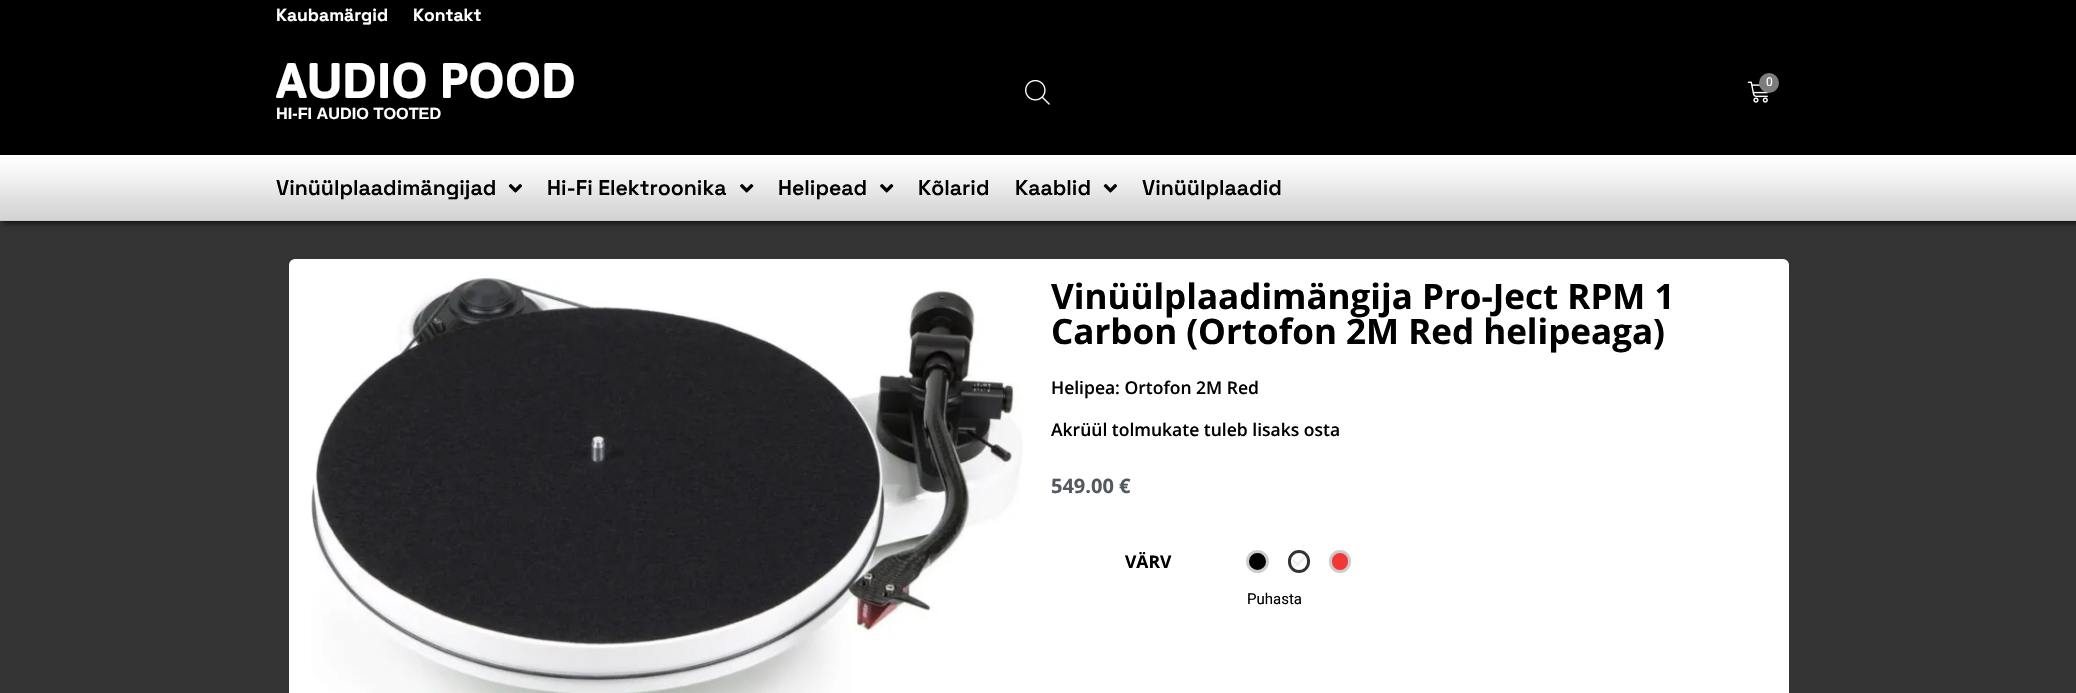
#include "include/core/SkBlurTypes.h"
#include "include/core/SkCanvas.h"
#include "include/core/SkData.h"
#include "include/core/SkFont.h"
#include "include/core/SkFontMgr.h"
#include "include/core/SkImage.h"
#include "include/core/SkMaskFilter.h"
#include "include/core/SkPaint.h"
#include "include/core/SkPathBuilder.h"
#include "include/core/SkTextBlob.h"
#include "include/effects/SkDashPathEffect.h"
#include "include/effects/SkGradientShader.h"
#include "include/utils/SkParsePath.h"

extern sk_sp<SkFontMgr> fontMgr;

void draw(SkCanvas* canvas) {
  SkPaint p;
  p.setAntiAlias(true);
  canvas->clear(SkColorSetRGB(51, 51, 51));
  p.setColor(SkColorSetARGB(128, 0, 0, 0));
  p.setMaskFilter(SkMaskFilter::MakeBlur(kNormal_SkBlurStyle, 2));
  canvas->drawRect(SkRect::MakeLTRB(3, 158, 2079, 224), p);
  p.setMaskFilter(nullptr);
  p.setColor(SK_ColorBLACK);
  canvas->drawRect(SkRect::MakeLTRB(0, 0, 2076, 155), p);
  canvas->drawImageRect(SkImages::DeferredFromEncodedData(SkData::MakeFromFileName("images/1.png")), SkRect::MakeLTRB(1025, 80, 1050, 105), SkSamplingOptions());
  canvas->drawImageRect(SkImages::DeferredFromEncodedData(SkData::MakeFromFileName("images/2.png")), SkRect::MakeLTRB(1747, 81, 1769, 103), SkSamplingOptions());
  p.setColor(SkColorSetRGB(125, 125, 125));
  canvas->drawCircle(1769, 83, 10, p);
  {
    const SkColor colors[] = {SK_ColorWHITE, SkColorSetRGB(250, 250, 250), SkColorSetRGB(236, 236, 236), SkColorSetRGB(219, 219, 219), SkColorSetRGB(212, 212, 212), SkColorSetRGB(214, 214, 214), SkColorSetRGB(187, 187, 187)};
    const float stops[] = {0, 0.17f, 0.47f, 0.77f, 0.96f, 0.98f, 1};
    const SkPoint ends[] = {{1038, 155}, {1038, 221}};
    p.setShader(SkGradientShader::MakeLinear(ends, colors, stops, 7, SkTileMode::kClamp));
    p.setAlpha(255);
  }
  canvas->drawRect(SkRect::MakeLTRB(0, 155, 2076, 221), p);
  canvas->drawImageRect(SkImages::DeferredFromEncodedData(SkData::MakeFromFileName("images/3.png")), SkRect::MakeLTRB(508, 184, 522, 193), SkSamplingOptions());
  canvas->drawImageRect(SkImages::DeferredFromEncodedData(SkData::MakeFromFileName("images/4.png")), SkRect::MakeLTRB(740, 184, 754, 193), SkSamplingOptions());
  canvas->drawImageRect(SkImages::DeferredFromEncodedData(SkData::MakeFromFileName("images/4.png")), SkRect::MakeLTRB(880, 184, 894, 193), SkSamplingOptions());
  canvas->drawImageRect(SkImages::DeferredFromEncodedData(SkData::MakeFromFileName("images/3.png")), SkRect::MakeLTRB(1103, 184, 1117, 193), SkSamplingOptions());
  p.setShader(nullptr);
  p.setColor(SK_ColorWHITE);
  canvas->drawRoundRect(SkRect::MakeLTRB(289, 259, 1789, 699), 6, 6, p);
  canvas->drawImageRect(SkImages::DeferredFromEncodedData(SkData::MakeFromFileName("images/5.png")), SkRect::MakeLTRB(311, 278, 1023, 693), SkSamplingOptions());
  p.setColor(SK_ColorBLACK);
  canvas->drawCircle(1257.5f, 561.5f, 10, p);
  p.setStyle(SkPaint::kStroke_Style);
  p.setStrokeWidth(3);
  p.setColor(SkColorSetRGB(204, 204, 204));
  canvas->drawCircle(1257.5f, 561.5f, 10, p);
  p.setColor(SkColorSetRGB(51, 51, 51));
  canvas->drawRoundRect(SkRect::MakeLTRB(1289.5f, 551.5f, 1308.5f, 571.5f), 9.5f, 9.5f, p);
  p.setStyle(SkPaint::kFill_Style);
  p.setColor(SkColorSetRGB(238, 238, 238));
  canvas->drawPath(SkPathBuilder().moveTo(1304.5f, 555.5f).lineTo(1306, 557.5f).lineTo(1297.5f, 566.5f).lineTo(1295.5f, 564.5f).close().detach(), p);
  canvas->drawPath(SkPathBuilder().moveTo(1294, 559).lineTo(1299, 564.5f).lineTo(1297.5f, 566.5f).lineTo(1292, 561).close().detach(), p);
  p.setColor(SkColorSetRGB(242, 55, 55));
  canvas->drawRoundRect(SkRect::MakeLTRB(1330.5f, 551.5f, 1349.5f, 571.5f), 9.5f, 9.5f, p);
  p.setStyle(SkPaint::kStroke_Style);
  p.setColor(SkColorSetRGB(204, 204, 204));
  canvas->drawRoundRect(SkRect::MakeLTRB(1330.5f, 551.5f, 1349.5f, 571.5f), 9.5f, 9.5f, p);
  SkFont font1(fontMgr->matchFamilyStyle("Space Grotesk", SkFontStyle::Bold()), 17.5f);
  font1.setSubpixel(true);
  p.setStyle(SkPaint::kFill_Style);
  p.setColor(SK_ColorWHITE);
  canvas->drawString("Kaubamärgid", 276, 21, font1, p);
  canvas->drawString("Kontakt", 413, 21, font1, p);
  SkFont font2(fontMgr->matchFamilyStyle("Asap", SkFontStyle::Bold()), 50);
  font2.setSubpixel(true);
  canvas->drawString("AUDIO POOD", 276, 98, font2, p);
  SkFont font3(fontMgr->matchFamilyStyle("Liberation Sans", SkFontStyle::Bold()), 16.25f);
  font3.setSubpixel(true);
  canvas->drawString("HI-FI AUDIO TOOTED", 276, 119, font3, p);
  SkFont font4(fontMgr->matchFamilyStyle("Roboto", SkFontStyle::Normal()), 12);
  font4.setSubpixel(true);
  canvas->drawString("0", 1766, 86, font4, p);
  SkFont font5(fontMgr->matchFamilyStyle("Space Grotesk", SkFontStyle(600, SkFontStyle::kNormal_Width, SkFontStyle::kUpright_Slant)), 21.25f);
  font5.setSubpixel(true);
  p.setColor(SK_ColorBLACK);
  canvas->drawString("Vinüülplaadimängijad", 276, 195, font5, p);
  canvas->drawString("Hi-Fi Elektroonika", 547, 195, font5, p);
  canvas->drawString("Helipead", 778, 195, font5, p);
  canvas->drawString("Kõlarid", 918, 195, font5, p);
  canvas->drawString("Kaablid", 1015, 195, font5, p);
  canvas->drawString("Vinüülplaadid", 1142, 195, font5, p);
  SkFont font6(fontMgr->matchFamilyStyle("Open Sans", SkFontStyle::Bold()), 35);
  font6.setSubpixel(true);
  canvas->drawString("Vinüülplaadimängija Pro-Ject RPM 1", 1051, 309, font6, p);
  canvas->drawString("Carbon (Ortofon 2M Red helipeaga)", 1051, 344, font6, p);
  SkFont font7(fontMgr->matchFamilyStyle("Open Sans", SkFontStyle(600, SkFontStyle::kNormal_Width, SkFontStyle::kUpright_Slant)), 17.5f);
  font7.setSubpixel(true);
  canvas->drawString("Helipea: Ortofon 2M Red", 1051, 394, font7, p);
  canvas->drawString("Akrüül tolmukate tuleb lisaks osta", 1051, 436, font7, p);
  SkFont font8(fontMgr->matchFamilyStyle("Open Sans", SkFontStyle::Bold()), 20);
  font8.setSubpixel(true);
  p.setColor(SkColorSetRGB(84, 89, 95));
  canvas->drawString("549.00 €", 1051, 493, font8, p);
  SkFont font9(fontMgr->matchFamilyStyle("Open Sans", SkFontStyle::Bold()), 17.5f);
  font9.setSubpixel(true);
  p.setColor(SK_ColorBLACK);
  canvas->drawString("VÄRV", 1125, 568, font9, p);
  SkFont font10(fontMgr->matchFamilyStyle("Roboto", SkFontStyle::Normal()), 15);
  font10.setSubpixel(true);
  canvas->drawString("Puhasta", 1247, 604, font10, p);
}
